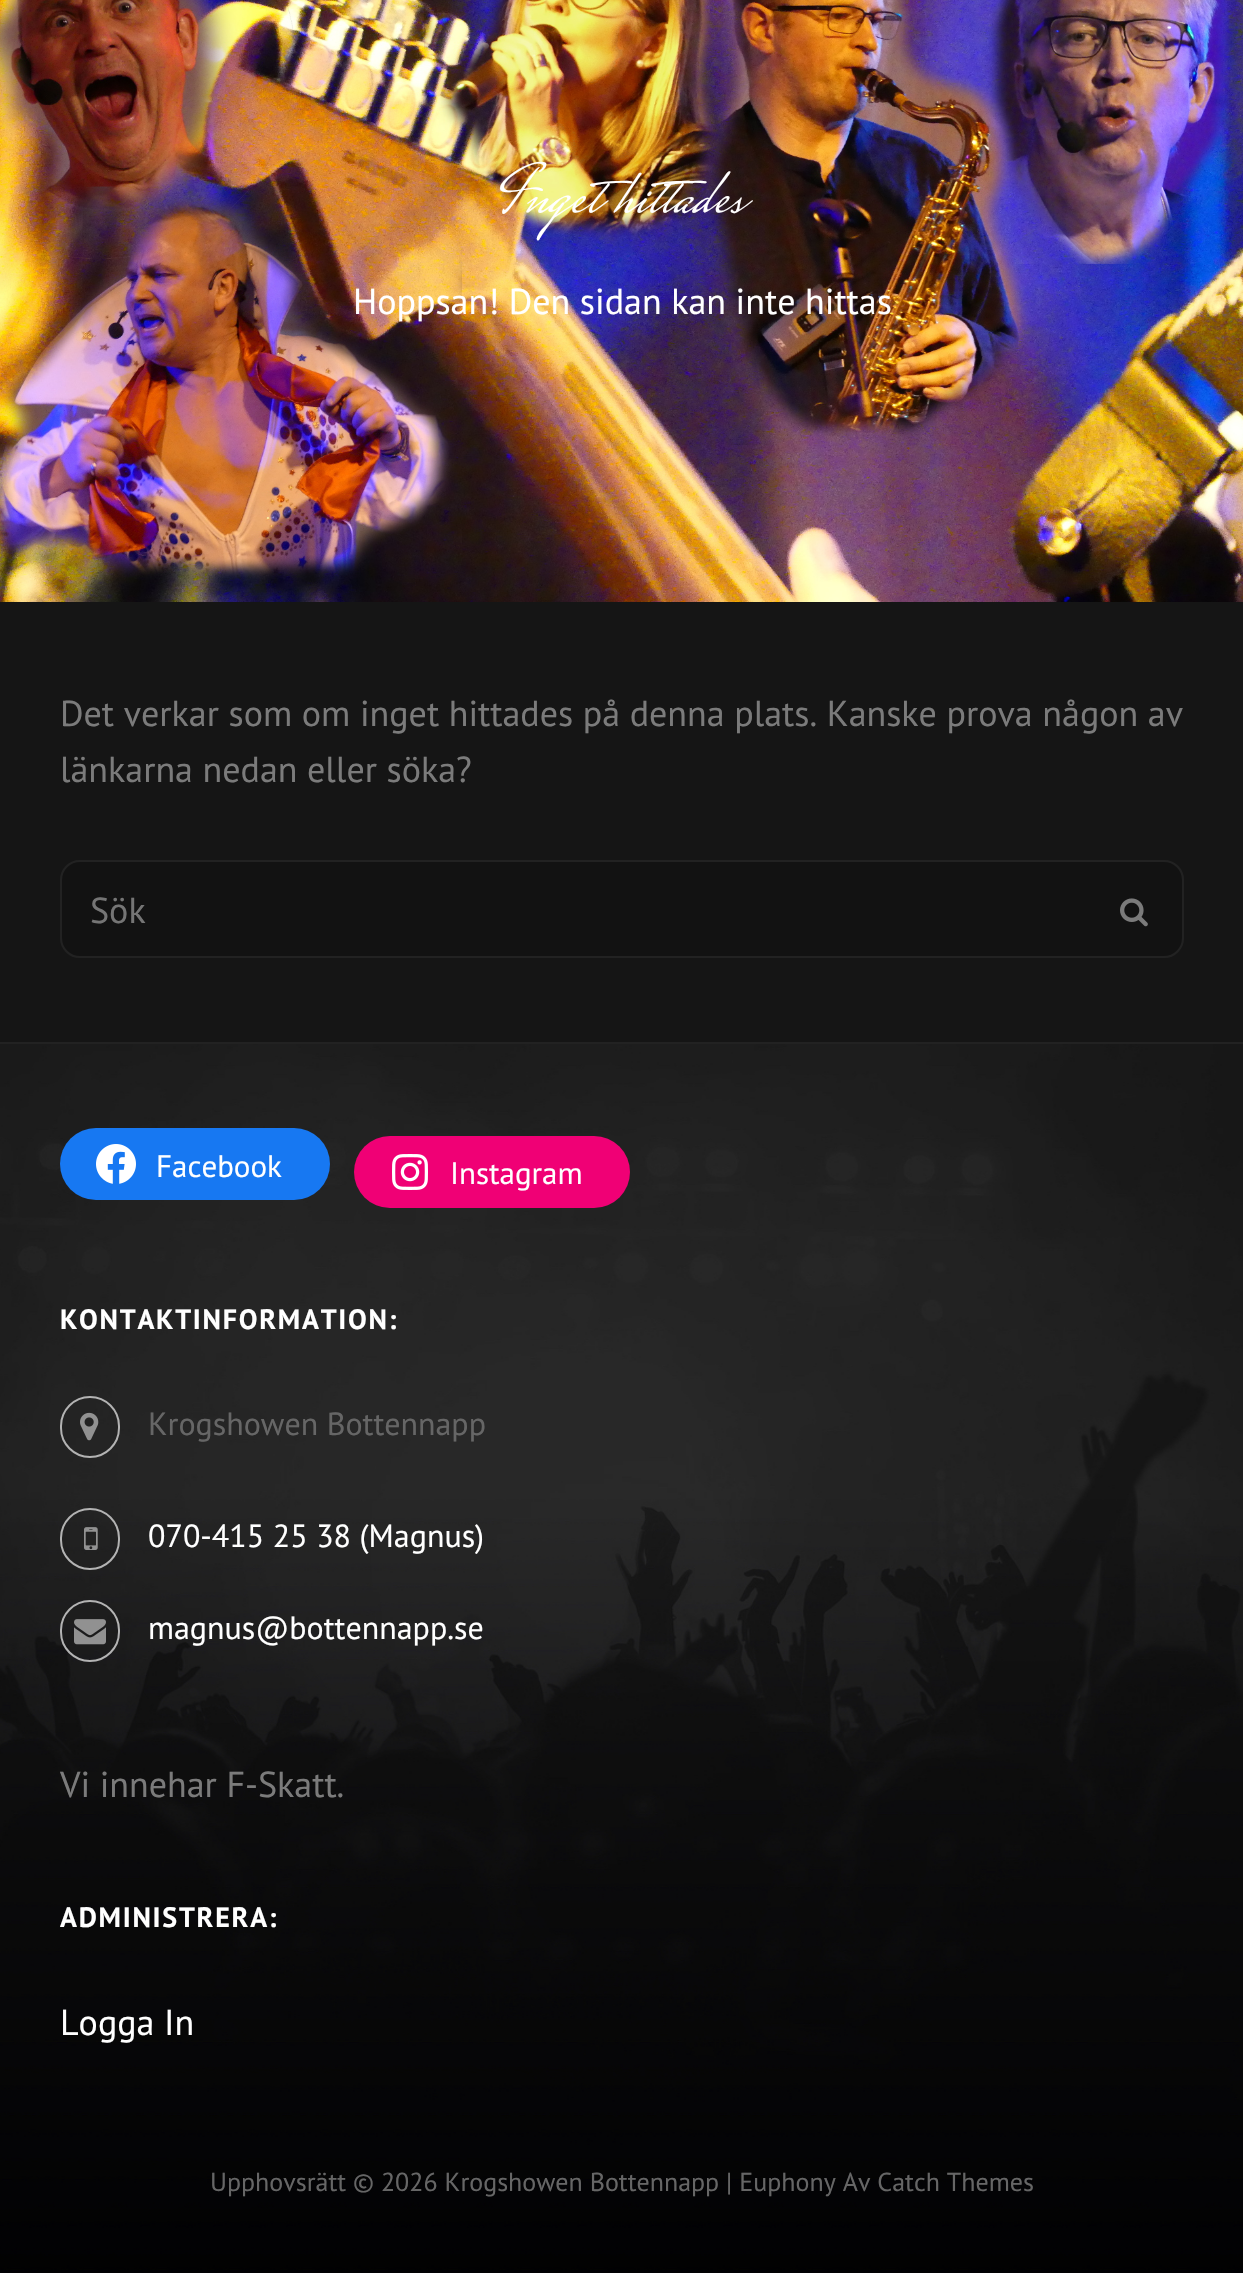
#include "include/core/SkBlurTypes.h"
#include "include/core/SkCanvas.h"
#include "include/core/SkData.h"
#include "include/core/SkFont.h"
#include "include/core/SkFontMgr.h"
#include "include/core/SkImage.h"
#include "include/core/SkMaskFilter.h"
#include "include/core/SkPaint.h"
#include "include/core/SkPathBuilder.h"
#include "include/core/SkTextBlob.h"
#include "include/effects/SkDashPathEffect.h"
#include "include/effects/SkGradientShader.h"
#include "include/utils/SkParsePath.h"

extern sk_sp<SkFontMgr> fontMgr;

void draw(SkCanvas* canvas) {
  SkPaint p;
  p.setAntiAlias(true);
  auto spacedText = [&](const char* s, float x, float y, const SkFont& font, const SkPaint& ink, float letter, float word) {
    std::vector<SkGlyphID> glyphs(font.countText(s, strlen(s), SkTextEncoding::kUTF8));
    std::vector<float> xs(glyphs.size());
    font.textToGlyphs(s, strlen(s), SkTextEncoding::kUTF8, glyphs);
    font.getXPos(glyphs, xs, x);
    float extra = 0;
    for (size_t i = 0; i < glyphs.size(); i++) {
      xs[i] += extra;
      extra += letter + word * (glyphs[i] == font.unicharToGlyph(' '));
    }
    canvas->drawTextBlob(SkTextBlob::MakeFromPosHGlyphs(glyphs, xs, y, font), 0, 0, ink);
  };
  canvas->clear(SkColorSetRGB(21, 21, 21));
  canvas->drawImageRect(SkImages::DeferredFromEncodedData(SkData::MakeFromFileName("images/1.png")), SkRect::MakeLTRB(0, 0, 1243, 602), SkSamplingOptions());
  p.setColor(SkColorSetRGB(34, 34, 34));
  canvas->drawRect(SkRect::MakeLTRB(0, 1042, 1243, 1044), p);
  p.setColor(SkColorSetRGB(18, 18, 18));
  canvas->drawRoundRect(SkRect::MakeLTRB(61, 861, 1183, 957), 19, 19, p);
  p.setStyle(SkPaint::kStroke_Style);
  p.setStrokeWidth(2);
  p.setColor(SkColorSetRGB(34, 34, 34));
  canvas->drawRoundRect(SkRect::MakeLTRB(61, 861, 1183, 957), 19, 19, p);
  canvas->drawImageRect(SkImages::DeferredFromEncodedData(SkData::MakeFromFileName("images/2.png")), SkRect::MakeLTRB(1120, 898, 1148, 927), SkSamplingOptions());
  canvas->drawImageRect(SkImages::DeferredFromEncodedData(SkData::MakeFromFileName("images/3.png")), SkRect::MakeLTRB(0, 1044, 1243, 2273), SkSamplingOptions());
  p.setStyle(SkPaint::kFill_Style);
  p.setColor(SkColorSetRGB(23, 120, 242));
  canvas->drawRoundRect(SkRect::MakeLTRB(60, 1128, 330, 1200), 36, 36, p);
  canvas->drawImageRect(SkImages::DeferredFromEncodedData(SkData::MakeFromFileName("images/4.png")), SkRect::MakeLTRB(96, 1144, 136, 1184), SkSamplingOptions());
  p.setColor(SkColorSetRGB(240, 0, 117));
  canvas->drawRoundRect(SkRect::MakeLTRB(354, 1136, 630, 1208), 36, 36, p);
  canvas->drawImageRect(SkImages::DeferredFromEncodedData(SkData::MakeFromFileName("images/5.png")), SkRect::MakeLTRB(392, 1154, 428, 1190), SkSamplingOptions());
  p.setStyle(SkPaint::kStroke_Style);
  p.setColor(SkColorSetRGB(179, 179, 179));
  canvas->drawRoundRect(SkRect::MakeLTRB(61, 1397, 119, 1457), 29, 29, p);
  canvas->drawImageRect(SkImages::DeferredFromEncodedData(SkData::MakeFromFileName("images/6.png")), SkRect::MakeLTRB(80, 1412, 99, 1441), SkSamplingOptions());
  canvas->drawRoundRect(SkRect::MakeLTRB(61, 1509, 119, 1569), 29, 29, p);
  canvas->drawImageRect(SkImages::DeferredFromEncodedData(SkData::MakeFromFileName("images/7.png")), SkRect::MakeLTRB(84, 1527, 98, 1550), SkSamplingOptions());
  canvas->drawRoundRect(SkRect::MakeLTRB(61, 1601, 119, 1661), 29, 29, p);
  canvas->drawImageRect(SkImages::DeferredFromEncodedData(SkData::MakeFromFileName("images/8.png")), SkRect::MakeLTRB(74, 1619, 106, 1645), SkSamplingOptions());
  SkFont font1(fontMgr->matchFamilyStyle("Mrs Saint Delafield", SkFontStyle::Normal()), 68);
  font1.setSubpixel(true);
  p.setStyle(SkPaint::kFill_Style);
  p.setColor(SK_ColorWHITE);
  canvas->drawString("Inget hittades", 500, 212, font1, p);
  SkFont font2(fontMgr->matchFamilyStyle("PT Sans", SkFontStyle::Normal()), 36);
  font2.setSubpixel(true);
  canvas->drawString("Hoppsan! Den sidan kan inte hittas", 353, 314, font2, p);
  p.setColor(SkColorSetRGB(123, 123, 123));
  canvas->drawString("Det verkar som om inget hittades på denna plats. Kanske prova någon av", 60, 726, font2, p);
  canvas->drawString("länkarna nedan eller söka?", 60, 782, font2, p);
  p.setColor(SkColorSetRGB(117, 117, 117));
  canvas->drawString("Sök", 90, 923, font2, p);
  SkFont font3(fontMgr->matchFamilyStyle("PT Sans", SkFontStyle::Normal()), 31);
  font3.setSubpixel(true);
  p.setColor(SK_ColorWHITE);
  canvas->drawString("Facebook", 156, 1177, font3, p);
  canvas->drawString("Instagram", 450, 1184, font3, p);
  SkFont font4(fontMgr->matchFamilyStyle("PT Sans", SkFontStyle::Bold()), 28);
  font4.setSubpixel(true);
  spacedText("KONTAKTINFORMATION:", 60, 1329, font4, p, 1.75f, 0);
  SkFont font5(fontMgr->matchFamilyStyle("PT Sans", SkFontStyle::Normal()), 32);
  font5.setSubpixel(true);
  p.setColor(SkColorSetRGB(102, 102, 102));
  canvas->drawString("Krogshowen Bottennapp", 148, 1435, font5, p);
  p.setColor(SK_ColorWHITE);
  canvas->drawString("070-415 25 38 (Magnus)", 148, 1547, font5, p);
  canvas->drawString("magnus@bottennapp.se", 148, 1639, font5, p);
  p.setColor(SkColorSetRGB(123, 123, 123));
  canvas->drawString("Vi innehar F-Skatt.", 60, 1797, font2, p);
  p.setColor(SK_ColorWHITE);
  spacedText("ADMINISTRERA:", 60, 1927, font4, p, 1.75f, 0);
  canvas->drawString("Logga In", 60, 2035, font2, p);
  SkFont font6(fontMgr->matchFamilyStyle("PT Sans", SkFontStyle::Normal()), 26);
  font6.setSubpixel(true);
  p.setColor(SkColorSetRGB(102, 102, 102));
  canvas->drawString("Upphovsrätt © 2026 Krogshowen Bottennapp | Euphony Av Catch Themes", 210, 2191, font6, p);
}
